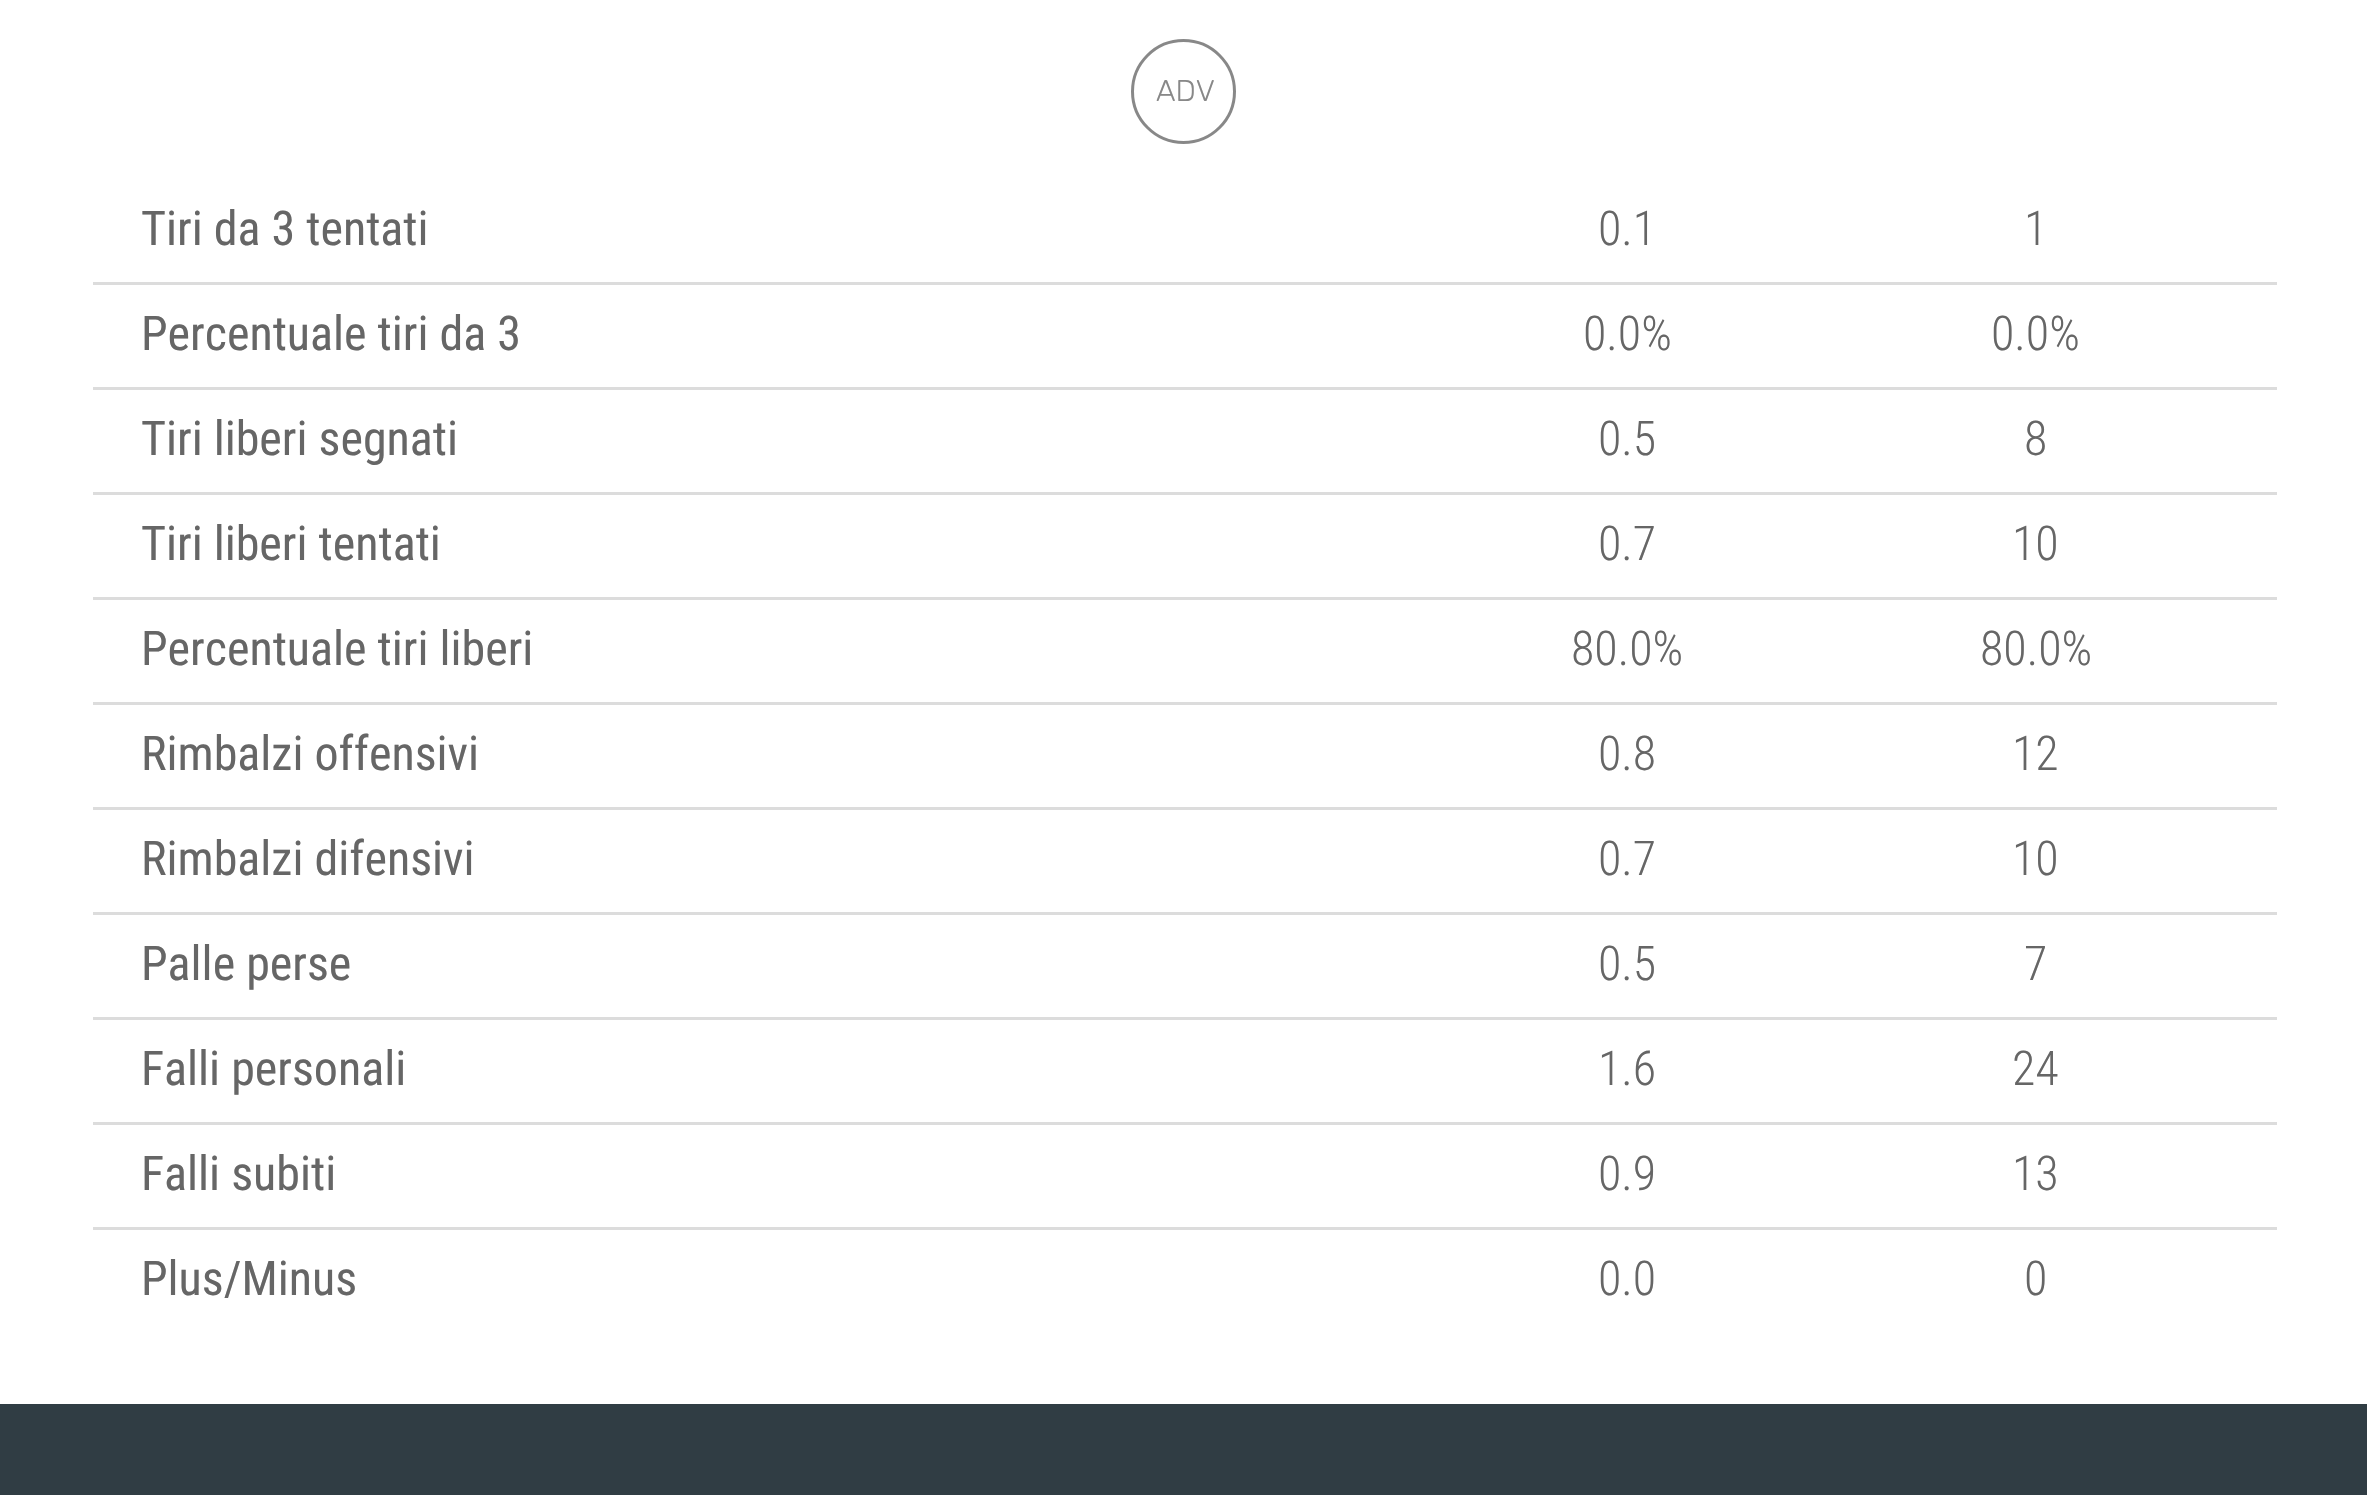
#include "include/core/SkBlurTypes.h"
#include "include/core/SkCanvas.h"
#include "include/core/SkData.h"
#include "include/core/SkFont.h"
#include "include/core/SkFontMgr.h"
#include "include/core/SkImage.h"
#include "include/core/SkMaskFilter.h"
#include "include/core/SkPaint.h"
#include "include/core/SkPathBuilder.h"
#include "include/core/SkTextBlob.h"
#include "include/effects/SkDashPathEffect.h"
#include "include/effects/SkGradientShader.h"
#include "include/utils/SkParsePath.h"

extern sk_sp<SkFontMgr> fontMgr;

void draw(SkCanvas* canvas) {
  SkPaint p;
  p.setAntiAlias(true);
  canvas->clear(SK_ColorWHITE);
  p.setStyle(SkPaint::kStroke_Style);
  p.setStrokeWidth(3);
  p.setColor(SkColorSetRGB(136, 136, 136));
  canvas->drawCircle(1183.5f, 91.5f, 51, p);
  p.setStyle(SkPaint::kFill_Style);
  p.setColor(SkColorSetRGB(220, 220, 220));
  canvas->drawRect(SkRect::MakeLTRB(93, 282, 2277, 285), p);
  canvas->drawRect(SkRect::MakeLTRB(93, 387, 2277, 390), p);
  canvas->drawRect(SkRect::MakeLTRB(93, 492, 2277, 495), p);
  canvas->drawRect(SkRect::MakeLTRB(93, 597, 2277, 600), p);
  canvas->drawRect(SkRect::MakeLTRB(93, 702, 2277, 705), p);
  canvas->drawRect(SkRect::MakeLTRB(93, 807, 2277, 810), p);
  canvas->drawRect(SkRect::MakeLTRB(93, 912, 2277, 915), p);
  canvas->drawRect(SkRect::MakeLTRB(93, 1017, 2277, 1020), p);
  canvas->drawRect(SkRect::MakeLTRB(93, 1122, 2277, 1125), p);
  canvas->drawRect(SkRect::MakeLTRB(93, 1227, 2277, 1230), p);
  p.setColor(SkColorSetRGB(48, 61, 68));
  canvas->drawRect(SkRect::MakeLTRB(0, 1404, 2367, 1495), p);
  SkFont font1(fontMgr->matchFamilyStyle("Rubik", SkFontStyle(300, SkFontStyle::kNormal_Width, SkFontStyle::kUpright_Slant)), 30);
  font1.setSubpixel(true);
  p.setColor(SkColorSetRGB(136, 136, 136));
  canvas->drawString("ADV", 1156, 101, font1, p);
  SkFont font2(fontMgr->matchFamilyStyle("Roboto Condensed", SkFontStyle::Normal()), 48);
  font2.setSubpixel(true);
  p.setColor(SkColorSetRGB(102, 102, 102));
  canvas->drawString("Tiri da 3 tentati", 141, 245, font2, p);
  SkFont font3(fontMgr->matchFamilyStyle("Roboto Condensed", SkFontStyle(300, SkFontStyle::kNormal_Width, SkFontStyle::kUpright_Slant)), 48);
  font3.setSubpixel(true);
  canvas->drawString("0.1", 1598, 245, font3, p);
  canvas->drawString("1", 2024, 245, font3, p);
  canvas->drawString("Percentuale tiri da 3", 141, 350, font2, p);
  canvas->drawString("0.0%", 1583, 350, font3, p);
  canvas->drawString("0.0%", 1991, 350, font3, p);
  canvas->drawString("Tiri liberi segnati", 141, 455, font2, p);
  canvas->drawString("0.5", 1598, 455, font3, p);
  canvas->drawString("8", 2024, 455, font3, p);
  canvas->drawString("Tiri liberi tentati", 141, 560, font2, p);
  canvas->drawString("0.7", 1598, 560, font3, p);
  canvas->drawString("10", 2012, 560, font3, p);
  canvas->drawString("Percentuale tiri liberi", 141, 665, font2, p);
  canvas->drawString("80.0%", 1571, 665, font3, p);
  canvas->drawString("80.0%", 1980, 665, font3, p);
  canvas->drawString("Rimbalzi offensivi", 141, 770, font2, p);
  canvas->drawString("0.8", 1598, 770, font3, p);
  canvas->drawString("12", 2012, 770, font3, p);
  canvas->drawString("Rimbalzi difensivi", 141, 875, font2, p);
  canvas->drawString("0.7", 1598, 875, font3, p);
  canvas->drawString("10", 2012, 875, font3, p);
  canvas->drawString("Palle perse", 141, 980, font2, p);
  canvas->drawString("0.5", 1598, 980, font3, p);
  canvas->drawString("7", 2024, 980, font3, p);
  canvas->drawString("Falli personali", 141, 1085, font2, p);
  canvas->drawString("1.6", 1598, 1085, font3, p);
  canvas->drawString("24", 2012, 1085, font3, p);
  canvas->drawString("Falli subiti", 141, 1190, font2, p);
  canvas->drawString("0.9", 1598, 1190, font3, p);
  canvas->drawString("13", 2012, 1190, font3, p);
  canvas->drawString("Plus/Minus", 141, 1295, font2, p);
  canvas->drawString("0.0", 1598, 1295, font3, p);
  canvas->drawString("0", 2024, 1295, font3, p);
}
